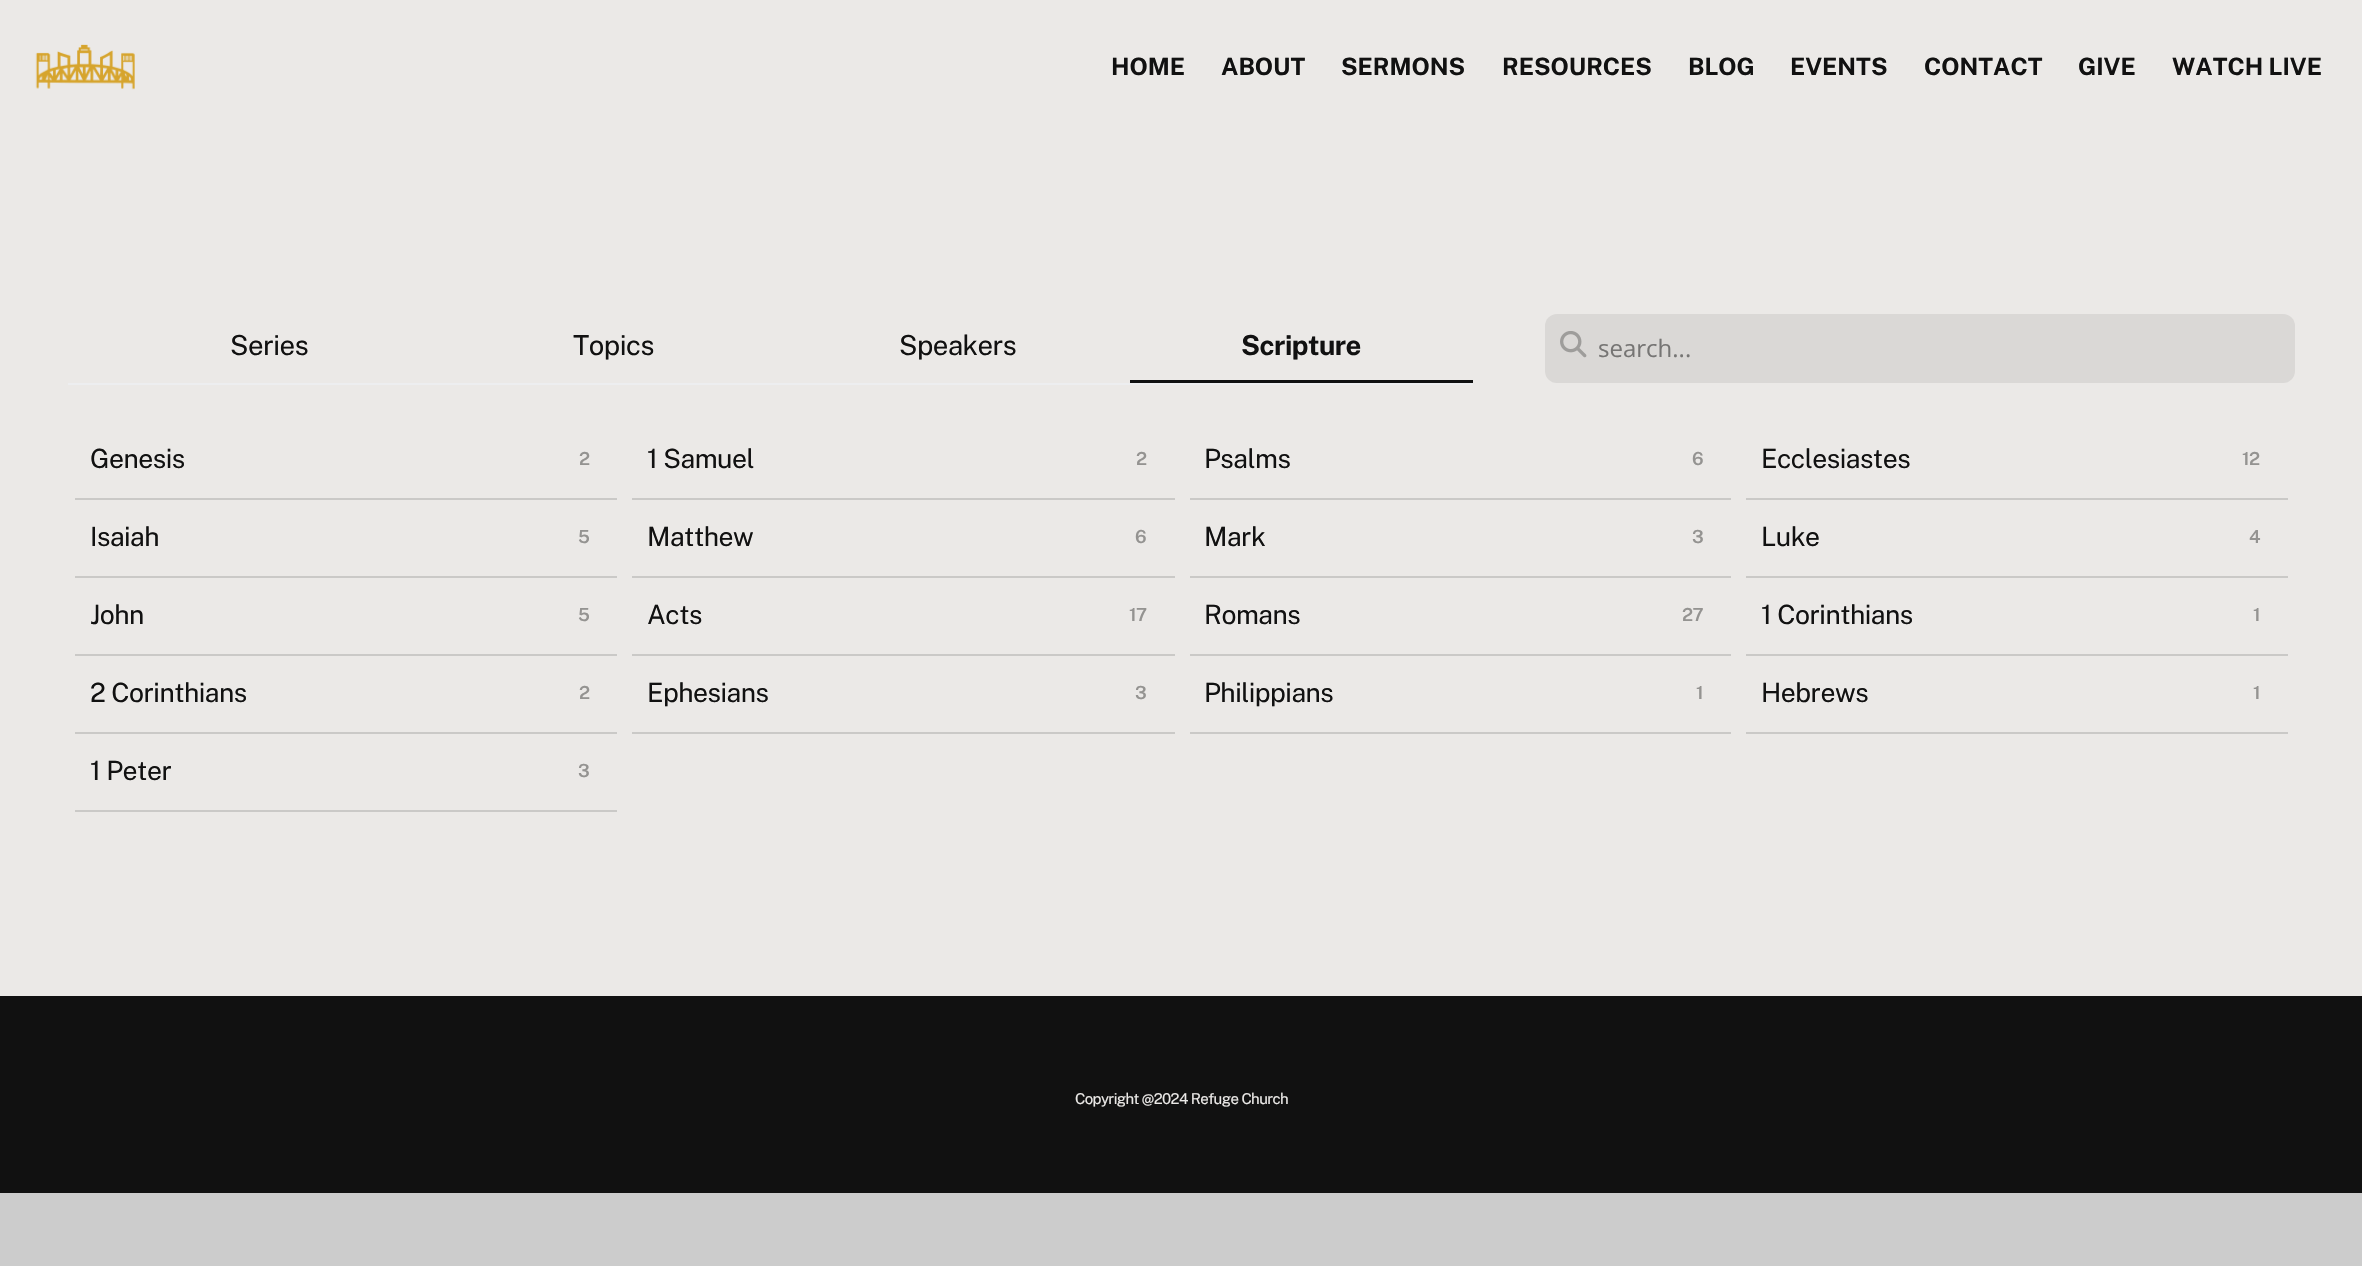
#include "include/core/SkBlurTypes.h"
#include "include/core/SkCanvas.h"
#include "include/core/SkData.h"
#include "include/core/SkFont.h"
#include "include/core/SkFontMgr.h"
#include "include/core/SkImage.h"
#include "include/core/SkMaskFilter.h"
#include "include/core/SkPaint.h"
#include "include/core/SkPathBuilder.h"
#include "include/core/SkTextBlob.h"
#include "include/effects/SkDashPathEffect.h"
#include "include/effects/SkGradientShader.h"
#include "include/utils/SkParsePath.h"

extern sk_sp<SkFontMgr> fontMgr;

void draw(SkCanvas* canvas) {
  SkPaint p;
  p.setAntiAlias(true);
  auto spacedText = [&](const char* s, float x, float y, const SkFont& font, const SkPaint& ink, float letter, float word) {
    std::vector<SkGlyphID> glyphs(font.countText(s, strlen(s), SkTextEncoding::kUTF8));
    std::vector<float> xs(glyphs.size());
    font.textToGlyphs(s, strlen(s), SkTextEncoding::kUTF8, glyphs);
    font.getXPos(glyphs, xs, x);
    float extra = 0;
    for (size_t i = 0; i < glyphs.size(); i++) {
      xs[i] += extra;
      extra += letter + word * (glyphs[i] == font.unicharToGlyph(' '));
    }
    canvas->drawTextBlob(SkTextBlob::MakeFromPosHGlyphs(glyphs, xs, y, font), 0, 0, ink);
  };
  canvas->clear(SkColorSetRGB(204, 204, 204));
  p.setColor(SkColorSetRGB(235, 233, 231));
  canvas->drawRect(SkRect::MakeLTRB(0, 0, 2362, 996), p);
  canvas->drawImageRect(SkImages::DeferredFromEncodedData(SkData::MakeFromFileName("images/1.png")), SkRect::MakeLTRB(35, 44, 135, 90), SkSamplingOptions());
  p.setColor(SkColorSetRGB(237, 238, 240));
  canvas->drawRect(SkRect::MakeLTRB(68, 383, 1473, 385), p);
  p.setColor(SkColorSetRGB(17, 17, 17));
  canvas->drawRect(SkRect::MakeLTRB(1130, 380, 1473, 383), p);
  p.setColor(SkColorSetRGB(218, 216, 214));
  canvas->drawRoundRect(SkRect::MakeLTRB(1545, 314, 2295, 383), 12, 12, p);
  canvas->drawImageRect(SkImages::DeferredFromEncodedData(SkData::MakeFromFileName("images/2.png")), SkRect::MakeLTRB(1560, 331, 1587, 358), SkSamplingOptions());
  p.setColor(SkColorSetRGB(202, 201, 199));
  canvas->drawRect(SkRect::MakeLTRB(75, 498, 617, 500), p);
  canvas->drawRect(SkRect::MakeLTRB(632, 498, 1175, 500), p);
  canvas->drawRect(SkRect::MakeLTRB(1190, 498, 1731, 500), p);
  canvas->drawRect(SkRect::MakeLTRB(1746, 498, 2288, 500), p);
  canvas->drawRect(SkRect::MakeLTRB(75, 576, 617, 578), p);
  canvas->drawRect(SkRect::MakeLTRB(632, 576, 1175, 578), p);
  canvas->drawRect(SkRect::MakeLTRB(1190, 576, 1731, 578), p);
  canvas->drawRect(SkRect::MakeLTRB(1746, 576, 2288, 578), p);
  canvas->drawRect(SkRect::MakeLTRB(75, 654, 617, 656), p);
  canvas->drawRect(SkRect::MakeLTRB(632, 654, 1175, 656), p);
  canvas->drawRect(SkRect::MakeLTRB(1190, 654, 1731, 656), p);
  canvas->drawRect(SkRect::MakeLTRB(1746, 654, 2288, 656), p);
  canvas->drawRect(SkRect::MakeLTRB(75, 732, 617, 734), p);
  canvas->drawRect(SkRect::MakeLTRB(632, 732, 1175, 734), p);
  canvas->drawRect(SkRect::MakeLTRB(1190, 732, 1731, 734), p);
  canvas->drawRect(SkRect::MakeLTRB(1746, 732, 2288, 734), p);
  canvas->drawRect(SkRect::MakeLTRB(75, 810, 617, 812), p);
  p.setColor(SkColorSetRGB(17, 17, 17));
  canvas->drawRect(SkRect::MakeLTRB(0, 996, 2362, 1193), p);
  SkFont font1(fontMgr->matchFamilyStyle("Public Sans", SkFontStyle::Bold()), 24);
  font1.setSubpixel(true);
  canvas->drawString("HOME", 1111, 75, font1, p);
  canvas->drawString("ABOUT", 1221, 75, font1, p);
  canvas->drawString("SERMONS", 1341, 75, font1, p);
  canvas->drawString("RESOURCES", 1502, 75, font1, p);
  canvas->drawString("BLOG", 1688, 75, font1, p);
  canvas->drawString("EVENTS", 1790, 75, font1, p);
  canvas->drawString("CONTACT", 1924, 75, font1, p);
  canvas->drawString("GIVE", 2078, 75, font1, p);
  canvas->drawString("WATCH LIVE", 2172, 75, font1, p);
  SkFont font2(fontMgr->matchFamilyStyle("Public Sans", SkFontStyle::Normal()), 27.5f);
  font2.setSubpixel(true);
  spacedText("Series", 230, 355, font2, p, -0.5f, 0);
  spacedText("Topics", 573, 355, font2, p, -0.5f, 0);
  spacedText("Speakers", 899, 355, font2, p, -0.5f, 0);
  SkFont font3(fontMgr->matchFamilyStyle("Public Sans", SkFontStyle::Bold()), 27.5f);
  font3.setSubpixel(true);
  spacedText("Scripture", 1241, 355, font3, p, -0.5f, 0);
  SkFont font4(fontMgr->matchFamilyStyle("Open Sans", SkFontStyle::Normal()), 24);
  font4.setSubpixel(true);
  p.setColor(SkColorSetRGB(118, 117, 116));
  canvas->drawString("search...", 1598, 357, font4, p);
  SkFont font5(fontMgr->matchFamilyStyle("Public Sans", SkFontStyle::Normal()), 26.5f);
  font5.setSubpixel(true);
  p.setColor(SkColorSetRGB(17, 17, 17));
  spacedText("Genesis", 90, 468, font5, p, -0.5f, 0);
  SkFont font6(fontMgr->matchFamilyStyle("Public Sans", SkFontStyle(600, SkFontStyle::kNormal_Width, SkFontStyle::kUpright_Slant)), 18);
  font6.setSubpixel(true);
  p.setColor(SkColorSetRGB(148, 147, 145));
  spacedText("2", 579, 465, font6, p, -0.5f, 0);
  p.setColor(SkColorSetRGB(17, 17, 17));
  spacedText("1 Samuel", 647, 468, font5, p, -0.5f, 0);
  p.setColor(SkColorSetRGB(148, 147, 145));
  spacedText("2", 1136, 465, font6, p, -0.5f, 0);
  p.setColor(SkColorSetRGB(17, 17, 17));
  spacedText("Psalms", 1204, 468, font5, p, -0.5f, 0);
  p.setColor(SkColorSetRGB(148, 147, 145));
  spacedText("6", 1692, 465, font6, p, -0.5f, 0);
  p.setColor(SkColorSetRGB(17, 17, 17));
  spacedText("Ecclesiastes", 1761, 468, font5, p, -0.5f, 0);
  p.setColor(SkColorSetRGB(148, 147, 145));
  spacedText("12", 2242, 465, font6, p, -0.5f, 0);
  p.setColor(SkColorSetRGB(17, 17, 17));
  spacedText("Isaiah", 90, 546, font5, p, -0.5f, 0);
  p.setColor(SkColorSetRGB(148, 147, 145));
  spacedText("5", 578, 543, font6, p, -0.5f, 0);
  p.setColor(SkColorSetRGB(17, 17, 17));
  spacedText("Matthew", 647, 546, font5, p, -0.5f, 0);
  p.setColor(SkColorSetRGB(148, 147, 145));
  spacedText("6", 1135, 543, font6, p, -0.5f, 0);
  p.setColor(SkColorSetRGB(17, 17, 17));
  spacedText("Mark", 1204, 546, font5, p, -0.5f, 0);
  p.setColor(SkColorSetRGB(148, 147, 145));
  spacedText("3", 1692, 543, font6, p, -0.5f, 0);
  p.setColor(SkColorSetRGB(17, 17, 17));
  spacedText("Luke", 1761, 546, font5, p, -0.5f, 0);
  p.setColor(SkColorSetRGB(148, 147, 145));
  spacedText("4", 2249, 543, font6, p, -0.5f, 0);
  p.setColor(SkColorSetRGB(17, 17, 17));
  spacedText("John", 90, 624, font5, p, -0.5f, 0);
  p.setColor(SkColorSetRGB(148, 147, 145));
  spacedText("5", 578, 621, font6, p, -0.5f, 0);
  p.setColor(SkColorSetRGB(17, 17, 17));
  spacedText("Acts", 647, 624, font5, p, -0.5f, 0);
  p.setColor(SkColorSetRGB(148, 147, 145));
  spacedText("17", 1129, 621, font6, p, -0.5f, 0);
  p.setColor(SkColorSetRGB(17, 17, 17));
  spacedText("Romans", 1204, 624, font5, p, -0.5f, 0);
  p.setColor(SkColorSetRGB(148, 147, 145));
  spacedText("27", 1682, 621, font6, p, -0.5f, 0);
  p.setColor(SkColorSetRGB(17, 17, 17));
  spacedText("1 Corinthians", 1761, 624, font5, p, -0.5f, 0);
  p.setColor(SkColorSetRGB(148, 147, 145));
  spacedText("1", 2253, 621, font6, p, -0.5f, 0);
  p.setColor(SkColorSetRGB(17, 17, 17));
  spacedText("2 Corinthians", 90, 702, font5, p, -0.5f, 0);
  p.setColor(SkColorSetRGB(148, 147, 145));
  spacedText("2", 579, 699, font6, p, -0.5f, 0);
  p.setColor(SkColorSetRGB(17, 17, 17));
  spacedText("Ephesians", 647, 702, font5, p, -0.5f, 0);
  p.setColor(SkColorSetRGB(148, 147, 145));
  spacedText("3", 1135, 699, font6, p, -0.5f, 0);
  p.setColor(SkColorSetRGB(17, 17, 17));
  spacedText("Philippians", 1204, 702, font5, p, -0.5f, 0);
  p.setColor(SkColorSetRGB(148, 147, 145));
  spacedText("1", 1696, 699, font6, p, -0.5f, 0);
  p.setColor(SkColorSetRGB(17, 17, 17));
  spacedText("Hebrews", 1761, 702, font5, p, -0.5f, 0);
  p.setColor(SkColorSetRGB(148, 147, 145));
  spacedText("1", 2253, 699, font6, p, -0.5f, 0);
  p.setColor(SkColorSetRGB(17, 17, 17));
  spacedText("1 Peter", 90, 780, font5, p, -0.5f, 0);
  p.setColor(SkColorSetRGB(148, 147, 145));
  spacedText("3", 578, 777, font6, p, -0.5f, 0);
  SkFont font7(fontMgr->matchFamilyStyle("Public Sans", SkFontStyle::Normal()), 15);
  font7.setSubpixel(true);
  p.setColor(SkColorSetRGB(235, 233, 231));
  spacedText("Copyright @2024 Refuge Church", 1075, 1104, font7, p, -0.6f, 0);
}
